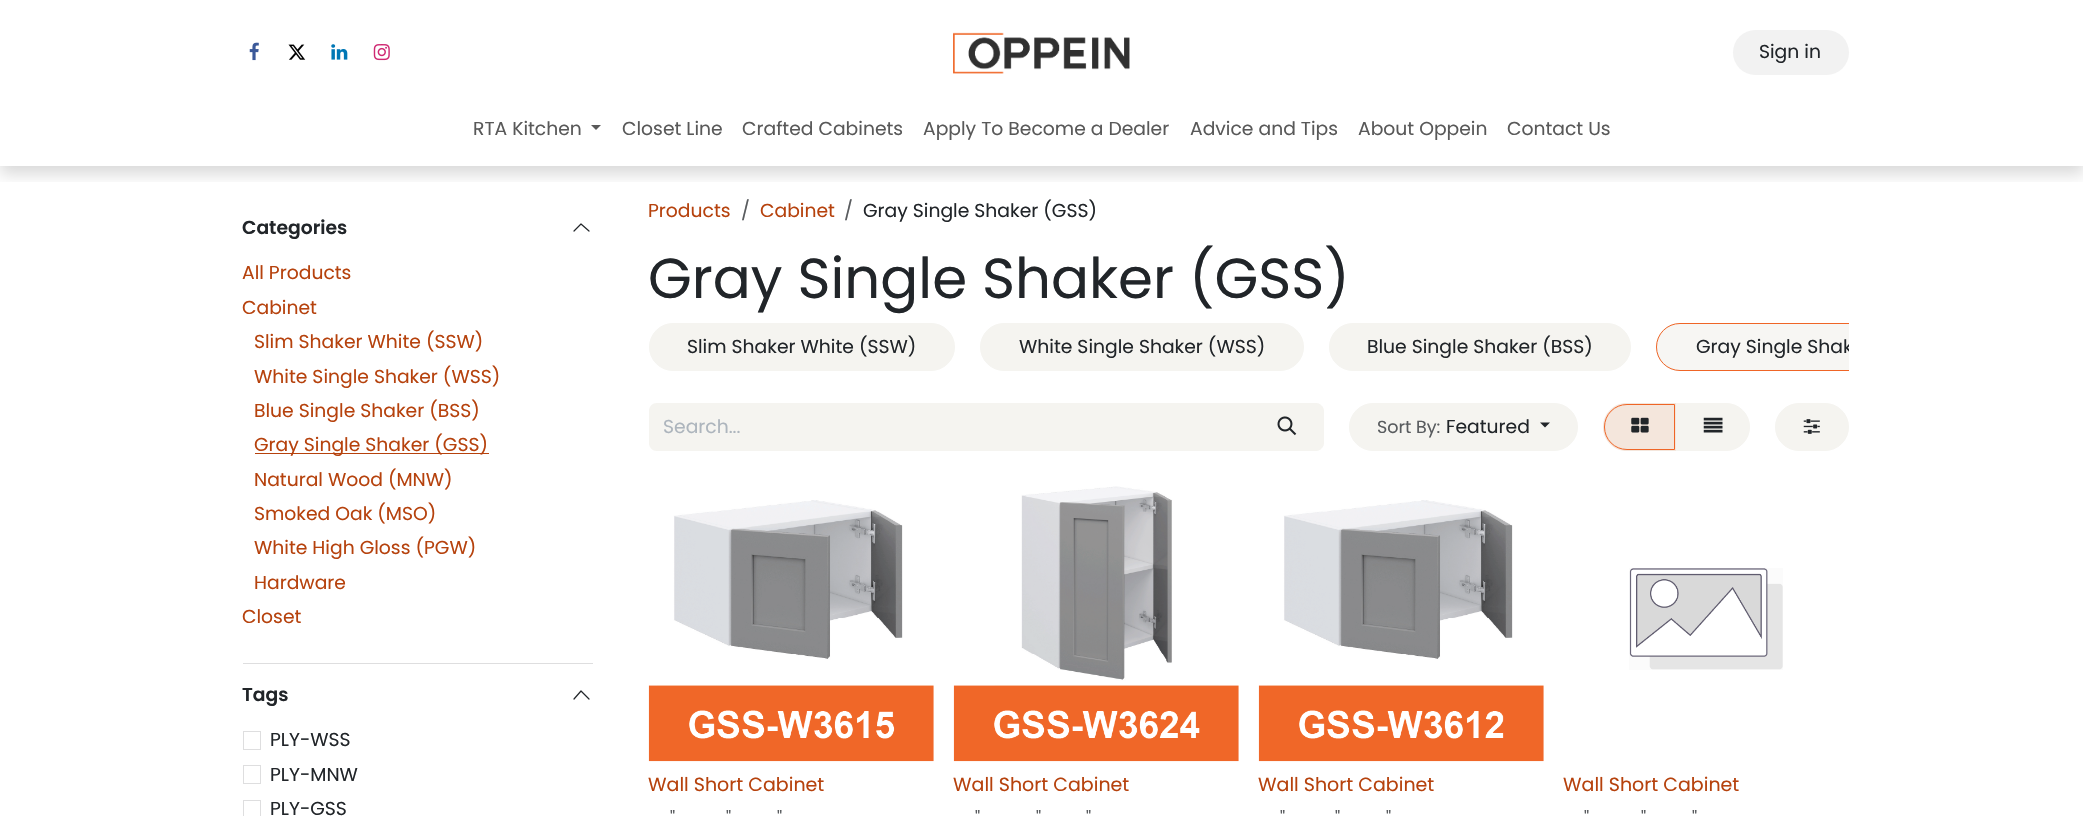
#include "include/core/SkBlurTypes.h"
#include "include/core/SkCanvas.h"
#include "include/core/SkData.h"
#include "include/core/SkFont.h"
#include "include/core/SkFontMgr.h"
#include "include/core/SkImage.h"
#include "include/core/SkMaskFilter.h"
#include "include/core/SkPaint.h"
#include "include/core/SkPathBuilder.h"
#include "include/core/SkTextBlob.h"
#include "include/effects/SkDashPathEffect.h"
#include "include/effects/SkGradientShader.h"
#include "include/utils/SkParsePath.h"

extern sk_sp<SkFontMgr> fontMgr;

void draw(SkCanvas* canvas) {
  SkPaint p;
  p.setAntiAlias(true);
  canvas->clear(SK_ColorWHITE);
  canvas->save();
  canvas->clipRect(SkRect::MakeLTRB(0, 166, 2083, 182));
  p.setColor(SkColorSetARGB(38, 0, 0, 0));
  p.setMaskFilter(SkMaskFilter::MakeBlur(kNormal_SkBlurStyle, 7.5f));
  canvas->drawRect(SkRect::MakeLTRB(0, 8, 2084, 174), p);
  p.setMaskFilter(nullptr);
  canvas->restore();
  canvas->drawImageRect(SkImages::DeferredFromEncodedData(SkData::MakeFromFileName("images/1.png")), SkRect::MakeLTRB(249, 42, 259, 61), SkSamplingOptions());
  canvas->drawImageRect(SkImages::DeferredFromEncodedData(SkData::MakeFromFileName("images/2.png")), SkRect::MakeLTRB(288, 44, 306, 60), SkSamplingOptions());
  canvas->drawImageRect(SkImages::DeferredFromEncodedData(SkData::MakeFromFileName("images/3.png")), SkRect::MakeLTRB(331, 44, 348, 60), SkSamplingOptions());
  canvas->drawImageRect(SkImages::DeferredFromEncodedData(SkData::MakeFromFileName("images/4.png")), SkRect::MakeLTRB(373, 44, 390, 61), SkSamplingOptions());
  canvas->drawImageRect(SkImages::DeferredFromEncodedData(SkData::MakeFromFileName("images/5.png")), SkRect::MakeLTRB(953, 32, 1130, 74), SkSamplingOptions());
  p.setColor(SkColorSetRGB(242, 242, 242));
  canvas->drawRoundRect(SkRect::MakeLTRB(1733, 30, 1849, 75), 22.5f, 22.5f, p);
  p.setColor(SkColorSetRGB(89, 89, 89));
  canvas->drawPath(SkPathBuilder().moveTo(591, 125).lineTo(601, 125).lineTo(596, 130).close().detach(), p);
  p.setStyle(SkPaint::kStroke_Style);
  p.setStrokeWidth(1.2f);
  p.setStrokeCap(SkPaint::kRound_Cap);
  p.setStrokeJoin(SkPaint::kRound_Join);
  p.setColor(SkColorSetRGB(33, 37, 41));
  canvas->drawPath(SkPathBuilder().moveTo(589, 231).lineTo(581, 224).lineTo(574, 231).detach(), p);
  p.setStyle(SkPaint::kFill_Style);
  p.setColor(SkColorSetRGB(182, 66, 13));
  canvas->drawRect(SkRect::MakeLTRB(255, 453, 489, 454), p);
  p.setColor(SkColorSetRGB(222, 222, 223));
  canvas->drawRect(SkRect::MakeLTRB(243, 663, 593, 664), p);
  p.setStyle(SkPaint::kStroke_Style);
  p.setColor(SkColorSetRGB(33, 37, 41));
  canvas->drawPath(SkPathBuilder().moveTo(589, 699).lineTo(581, 691).lineTo(574, 699).detach(), p);
  p.setStrokeWidth(1);
  p.setStrokeCap(SkPaint::kButt_Cap);
  p.setStrokeJoin(SkPaint::kMiter_Join);
  p.setColor(SkColorSetRGB(222, 222, 223));
  canvas->drawRect(SkRect::MakeLTRB(243.5f, 731.5f, 260.5f, 749.5f), p);
  canvas->drawRect(SkRect::MakeLTRB(243.5f, 765.5f, 260.5f, 783.5f), p);
  canvas->drawRect(SkRect::MakeLTRB(243.5f, 800.5f, 260.5f, 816.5f), p);
  p.setStyle(SkPaint::kFill_Style);
  p.setColor(SkColorSetRGB(245, 244, 240));
  canvas->drawRoundRect(SkRect::MakeLTRB(649.5f, 323.5f, 954.5f, 370.5f), 23.5f, 23.5f, p);
  p.setStyle(SkPaint::kStroke_Style);
  canvas->drawRoundRect(SkRect::MakeLTRB(649.5f, 323.5f, 954.5f, 370.5f), 23.5f, 23.5f, p);
  p.setStyle(SkPaint::kFill_Style);
  canvas->drawRoundRect(SkRect::MakeLTRB(980.5f, 323.5f, 1303.5f, 370.5f), 23.5f, 23.5f, p);
  p.setStyle(SkPaint::kStroke_Style);
  canvas->drawRoundRect(SkRect::MakeLTRB(980.5f, 323.5f, 1303.5f, 370.5f), 23.5f, 23.5f, p);
  p.setStyle(SkPaint::kFill_Style);
  canvas->drawRoundRect(SkRect::MakeLTRB(1329.5f, 323.5f, 1630.5f, 370.5f), 23.5f, 23.5f, p);
  p.setStyle(SkPaint::kStroke_Style);
  canvas->drawRoundRect(SkRect::MakeLTRB(1329.5f, 323.5f, 1630.5f, 370.5f), 23.5f, 23.5f, p);
  p.setStyle(SkPaint::kFill_Style);
  p.setColor(SkColorSetRGB(247, 246, 243));
  canvas->drawPath(SkPathBuilder().moveTo(1680, 323).lineTo(1849, 323).lineTo(1849, 371).lineTo(1680, 371).cubicTo(1666.5f, 371, 1656, 360.5f, 1656, 347).cubicTo(1656, 333.5f, 1666.5f, 323, 1680, 323).close().detach(), p);
  canvas->save();
  canvas->clipRect(SkRect::MakeLTRB(649, 323, 1849, 378));
  p.setStyle(SkPaint::kStroke_Style);
  p.setColor(SkColorSetRGB(239, 101, 38));
  canvas->drawRoundRect(SkRect::MakeLTRB(1656.5f, 323.5f, 1968.5f, 370.5f), 23.5f, 23.5f, p);
  canvas->restore();
  p.setStyle(SkPaint::kFill_Style);
  p.setColor(SkColorSetRGB(245, 244, 240));
  canvas->drawPath(SkPathBuilder().moveTo(657, 403).lineTo(1250, 403).lineTo(1250, 451).lineTo(657, 451).cubicTo(652.5f, 451, 649, 447.5f, 649, 443).lineTo(649, 411).cubicTo(649, 406.5f, 652.5f, 403, 657, 403).close().detach(), p);
  canvas->drawPath(SkPathBuilder().moveTo(1249.5f, 403.5f).lineTo(1316, 403.5f).cubicTo(1320, 403.5f, 1323.5f, 407, 1323.5f, 411).lineTo(1323.5f, 443).cubicTo(1323.5f, 447, 1320, 450.5f, 1316, 450.5f).lineTo(1249.5f, 450.5f).close().detach(), p);
  p.setStyle(SkPaint::kStroke_Style);
  canvas->drawPath(SkPathBuilder().moveTo(1249.5f, 403.5f).lineTo(1316, 403.5f).cubicTo(1320, 403.5f, 1323.5f, 407, 1323.5f, 411).lineTo(1323.5f, 443).cubicTo(1323.5f, 447, 1320, 450.5f, 1316, 450.5f).lineTo(1249.5f, 450.5f).close().detach(), p);
  canvas->drawImageRect(SkImages::DeferredFromEncodedData(SkData::MakeFromFileName("images/6.png")), SkRect::MakeLTRB(1277, 416, 1297, 436), SkSamplingOptions());
  p.setStyle(SkPaint::kFill_Style);
  canvas->drawRoundRect(SkRect::MakeLTRB(1349.5f, 403.5f, 1577.5f, 450.5f), 23.5f, 23.5f, p);
  p.setStyle(SkPaint::kStroke_Style);
  canvas->drawRoundRect(SkRect::MakeLTRB(1349.5f, 403.5f, 1577.5f, 450.5f), 23.5f, 23.5f, p);
  p.setStyle(SkPaint::kFill_Style);
  p.setColor(SkColorSetRGB(33, 37, 41));
  canvas->drawPath(SkPathBuilder().moveTo(1540, 422.5f).lineTo(1550, 422.5f).lineTo(1545, 427.5f).close().detach(), p);
  p.setColor(SkColorSetRGB(245, 244, 240));
  canvas->drawPath(SkPathBuilder().moveTo(1675.5f, 403.5f).lineTo(1726, 403.5f).cubicTo(1739, 403.5f, 1749.5f, 414, 1749.5f, 427).cubicTo(1749.5f, 440, 1739, 450.5f, 1726, 450.5f).lineTo(1675.5f, 450.5f).close().detach(), p);
  p.setStyle(SkPaint::kStroke_Style);
  canvas->drawPath(SkPathBuilder().moveTo(1675.5f, 403.5f).lineTo(1726, 403.5f).cubicTo(1739, 403.5f, 1749.5f, 414, 1749.5f, 427).cubicTo(1749.5f, 440, 1739, 450.5f, 1726, 450.5f).lineTo(1675.5f, 450.5f).close().detach(), p);
  p.setStyle(SkPaint::kFill_Style);
  p.setColor(SkColorSetRGB(244, 230, 220));
  canvas->drawPath(SkPathBuilder().moveTo(1627, 403).lineTo(1676, 403).lineTo(1676, 451).lineTo(1627, 451).cubicTo(1613.5f, 451, 1603, 440.5f, 1603, 427).cubicTo(1603, 413.5f, 1613.5f, 403, 1627, 403).close().detach(), p);
  p.setStyle(SkPaint::kStroke_Style);
  p.setColor(SkColorSetRGB(239, 101, 38));
  canvas->drawPath(SkPathBuilder().moveTo(1627, 404.5f).lineTo(1674.5f, 404.5f).lineTo(1674.5f, 449.5f).lineTo(1627, 449.5f).cubicTo(1614.5f, 449.5f, 1604.5f, 439.5f, 1604.5f, 427).cubicTo(1604.5f, 414.5f, 1614.5f, 404.5f, 1627, 404.5f).close().detach(), p);
  canvas->drawImageRect(SkImages::DeferredFromEncodedData(SkData::MakeFromFileName("images/7.png")), SkRect::MakeLTRB(1631, 417, 1649, 433), SkSamplingOptions());
  canvas->drawImageRect(SkImages::DeferredFromEncodedData(SkData::MakeFromFileName("images/8.png")), SkRect::MakeLTRB(1703, 417, 1723, 433), SkSamplingOptions());
  p.setStyle(SkPaint::kFill_Style);
  p.setColor(SkColorSetRGB(245, 244, 240));
  canvas->drawRoundRect(SkRect::MakeLTRB(1775.5f, 403.5f, 1848.5f, 450.5f), 23.5f, 23.5f, p);
  p.setStyle(SkPaint::kStroke_Style);
  canvas->drawRoundRect(SkRect::MakeLTRB(1775.5f, 403.5f, 1848.5f, 450.5f), 23.5f, 23.5f, p);
  canvas->drawImageRect(SkImages::DeferredFromEncodedData(SkData::MakeFromFileName("images/9.png")), SkRect::MakeLTRB(1803, 419, 1820, 434), SkSamplingOptions());
  canvas->drawImageRect(SkImages::DeferredFromEncodedData(SkData::MakeFromFileName("images/10.png")), SkRect::MakeLTRB(648, 500, 934, 762), SkSamplingOptions());
  canvas->drawImageRect(SkImages::DeferredFromEncodedData(SkData::MakeFromFileName("images/11.png")), SkRect::MakeLTRB(953, 486, 1239, 762), SkSamplingOptions());
  canvas->drawImageRect(SkImages::DeferredFromEncodedData(SkData::MakeFromFileName("images/12.png")), SkRect::MakeLTRB(1258, 500, 1544, 762), SkSamplingOptions());
  canvas->drawImageRect(SkImages::DeferredFromEncodedData(SkData::MakeFromFileName("images/13.png")), SkRect::MakeLTRB(1629, 568, 1783, 670), SkSamplingOptions());
  SkFont font1(fontMgr->matchFamilyStyle("Poppins", SkFontStyle::Normal()), 18.75f);
  font1.setSubpixel(true);
  p.setStyle(SkPaint::kFill_Style);
  p.setColor(SkColorSetRGB(33, 37, 41));
  canvas->drawString("Sign in", 1759, 58, font1, p);
  p.setColor(SkColorSetRGB(89, 89, 89));
  canvas->drawString("RTA Kitchen", 473, 135, font1, p);
  canvas->drawString("Closet Line", 622, 135, font1, p);
  canvas->drawString("Crafted Cabinets", 742, 135, font1, p);
  canvas->drawString("Apply To Become a Dealer", 923, 135, font1, p);
  canvas->drawString("Advice and Tips", 1190, 135, font1, p);
  canvas->drawString("About Oppein", 1358, 135, font1, p);
  canvas->drawString("Contact Us", 1507, 135, font1, p);
  SkFont font2(fontMgr->matchFamilyStyle("Poppins", SkFontStyle(600, SkFontStyle::kNormal_Width, SkFontStyle::kUpright_Slant)), 18.75f);
  font2.setSubpixel(true);
  p.setColor(SkColorSetRGB(33, 37, 41));
  canvas->drawString("Categories", 242, 234, font2, p);
  p.setColor(SkColorSetRGB(182, 66, 13));
  canvas->drawString("All Products", 242, 279, font1, p);
  canvas->drawString("Cabinet", 242, 314, font1, p);
  canvas->drawString("Slim Shaker White (SSW)", 254, 348, font1, p);
  canvas->drawString("White Single Shaker (WSS)", 254, 383, font1, p);
  canvas->drawString("Blue Single Shaker (BSS)", 254, 417, font1, p);
  canvas->drawString("Gray Single Shaker (GSS)", 254, 451, font1, p);
  canvas->drawString("Natural Wood (MNW)", 254, 486, font1, p);
  canvas->drawString("Smoked Oak (MSO)", 254, 520, font1, p);
  canvas->drawString("White High Gloss (PGW)", 254, 554, font1, p);
  canvas->drawString("Hardware", 254, 589, font1, p);
  canvas->drawString("Closet", 242, 623, font1, p);
  p.setColor(SkColorSetRGB(33, 37, 41));
  canvas->drawString("Tags", 242, 701, font2, p);
  canvas->drawString("PLY-WSS", 270, 746, font1, p);
  canvas->drawString("PLY-MNW", 270, 781, font1, p);
  canvas->drawString("PLY-GSS", 270, 815, font1, p);
  p.setColor(SkColorSetRGB(182, 66, 13));
  canvas->drawString("Products", 648, 217, font1, p);
  p.setColor(SkColorSetRGB(89, 92, 95));
  canvas->drawString("/", 741, 217, font1, p);
  p.setColor(SkColorSetRGB(182, 66, 13));
  canvas->drawString("Cabinet", 760, 217, font1, p);
  p.setColor(SkColorSetRGB(89, 92, 95));
  canvas->drawString("/", 844, 217, font1, p);
  p.setColor(SkColorSetRGB(33, 37, 41));
  canvas->drawString("Gray Single Shaker (GSS)", 863, 217, font1, p);
  SkFont font3(fontMgr->matchFamilyStyle("Poppins", SkFontStyle::Normal()), 56.25f);
  font3.setSubpixel(true);
  canvas->drawString("Gray Single Shaker (GSS)", 648, 298, font3, p);
  canvas->drawString("Slim Shaker White (SSW)", 687, 353, font1, p);
  canvas->drawString("White Single Shaker (WSS)", 1019, 353, font1, p);
  canvas->drawString("Blue Single Shaker (BSS)", 1367, 353, font1, p);
  canvas->save();
  canvas->clipRect(SkRect::MakeLTRB(649, 323, 1849, 378));
  canvas->drawString("Gray Single Shak", 1696, 353, font1, p);
  canvas->restore();
  p.setColor(SkColorSetRGB(173, 181, 189));
  canvas->drawString("Search...", 663, 433, font1, p);
  SkFont font4(fontMgr->matchFamilyStyle("Poppins", SkFontStyle::Normal()), 17.5f);
  font4.setSubpixel(true);
  p.setColor(SkColorSetRGB(89, 92, 95));
  canvas->drawString("Sort By:", 1377, 433, font4, p);
  p.setColor(SkColorSetRGB(33, 37, 41));
  canvas->drawString("Featured", 1446, 433, font1, p);
  SkFont font5(fontMgr->matchFamilyStyle("Poppins", SkFontStyle::Normal()), 19);
  font5.setSubpixel(true);
  p.setColor(SkColorSetRGB(182, 66, 13));
  canvas->drawString("Wall Short Cabinet", 648, 791, font5, p);
  p.setColor(SkColorSetRGB(89, 92, 95));
  canvas->drawString("\"", 670, 824, font4, p);
  canvas->drawString("\"", 726, 824, font4, p);
  canvas->drawString("\"", 777, 824, font4, p);
  p.setColor(SkColorSetRGB(182, 66, 13));
  canvas->drawString("Wall Short Cabinet", 953, 791, font5, p);
  p.setColor(SkColorSetRGB(89, 92, 95));
  canvas->drawString("\"", 975, 824, font4, p);
  canvas->drawString("\"", 1036, 824, font4, p);
  canvas->drawString("\"", 1086, 824, font4, p);
  p.setColor(SkColorSetRGB(182, 66, 13));
  canvas->drawString("Wall Short Cabinet", 1258, 791, font5, p);
  p.setColor(SkColorSetRGB(89, 92, 95));
  canvas->drawString("\"", 1280, 824, font4, p);
  canvas->drawString("\"", 1335, 824, font4, p);
  canvas->drawString("\"", 1386, 824, font4, p);
  p.setColor(SkColorSetRGB(182, 66, 13));
  canvas->drawString("Wall Short Cabinet", 1563, 791, font5, p);
  p.setColor(SkColorSetRGB(89, 92, 95));
  canvas->drawString("\"", 1584, 824, font4, p);
  canvas->drawString("\"", 1641, 824, font4, p);
  canvas->drawString("\"", 1692, 824, font4, p);
}
